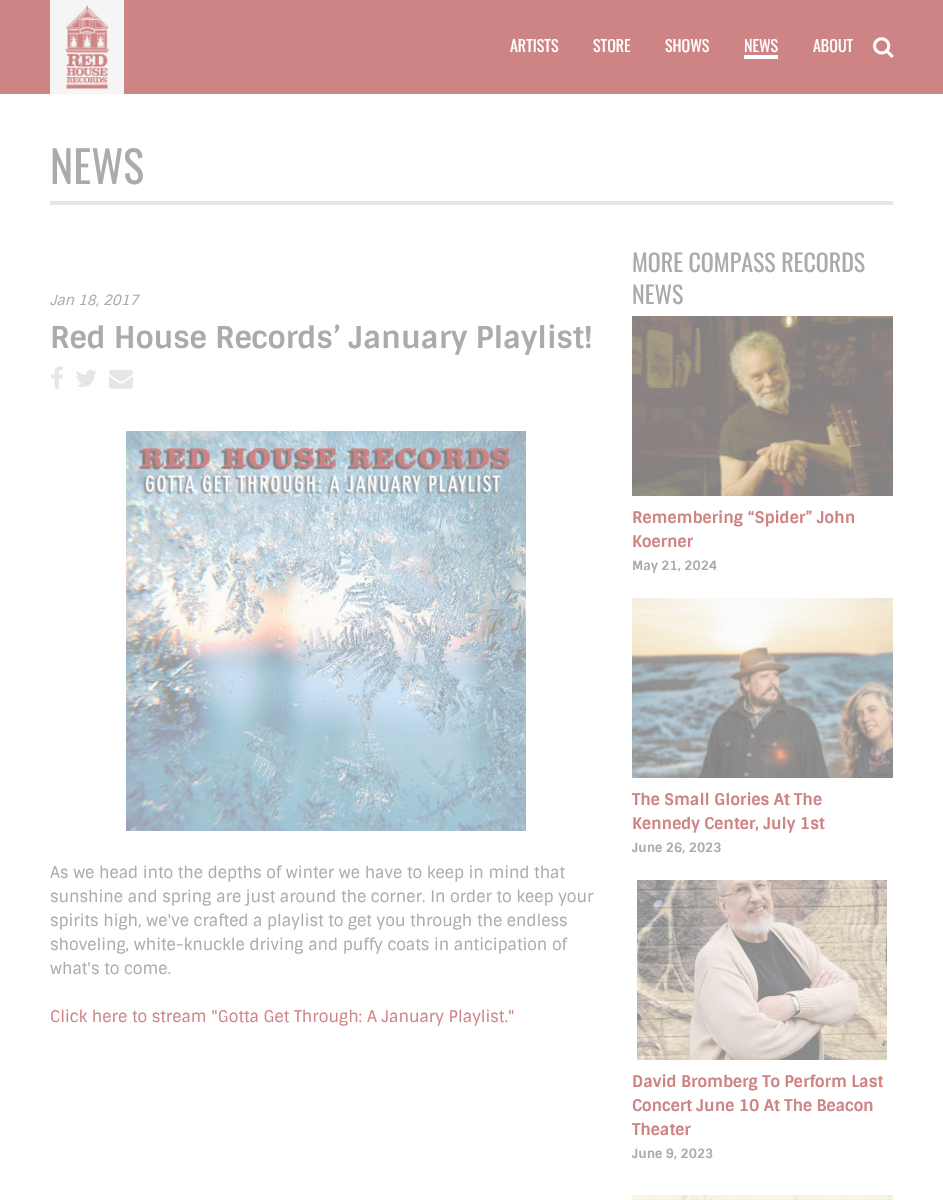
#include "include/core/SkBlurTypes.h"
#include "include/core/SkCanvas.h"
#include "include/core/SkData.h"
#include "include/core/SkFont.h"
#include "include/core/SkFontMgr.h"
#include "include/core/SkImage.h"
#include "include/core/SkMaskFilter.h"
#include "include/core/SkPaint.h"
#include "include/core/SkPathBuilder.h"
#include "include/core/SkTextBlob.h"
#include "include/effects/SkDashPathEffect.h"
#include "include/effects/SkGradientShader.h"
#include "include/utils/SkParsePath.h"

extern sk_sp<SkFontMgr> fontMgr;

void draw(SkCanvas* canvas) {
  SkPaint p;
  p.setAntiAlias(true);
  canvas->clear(SK_ColorWHITE);
  p.setColor(SkColorSetRGB(206, 131, 132));
  canvas->drawRect(SkRect::MakeLTRB(0, 0, 943, 94), p);
  p.setColor(SkColorSetRGB(245, 245, 245));
  canvas->drawRect(SkRect::MakeLTRB(50, 0, 124, 94), p);
  canvas->drawImageRect(SkImages::DeferredFromEncodedData(SkData::MakeFromFileName("images/1.png")), SkRect::MakeLTRB(65, 5, 109, 89), SkSamplingOptions());
  p.setColor(SK_ColorWHITE);
  canvas->drawRect(SkRect::MakeLTRB(744, 55, 778, 59), p);
  canvas->drawImageRect(SkImages::DeferredFromEncodedData(SkData::MakeFromFileName("images/2.png")), SkRect::MakeLTRB(873, 37, 894, 58), SkSamplingOptions());
  p.setColor(SkColorSetRGB(230, 230, 230));
  canvas->drawRect(SkRect::MakeLTRB(50, 201, 893, 205), p);
  canvas->drawImageRect(SkImages::DeferredFromEncodedData(SkData::MakeFromFileName("images/3.png")), SkRect::MakeLTRB(51, 366, 63, 389), SkSamplingOptions());
  canvas->drawImageRect(SkImages::DeferredFromEncodedData(SkData::MakeFromFileName("images/4.png")), SkRect::MakeLTRB(76, 369, 97, 387), SkSamplingOptions());
  canvas->drawImageRect(SkImages::DeferredFromEncodedData(SkData::MakeFromFileName("images/5.png")), SkRect::MakeLTRB(109, 369, 133, 389), SkSamplingOptions());
  canvas->drawImageRect(SkImages::DeferredFromEncodedData(SkData::MakeFromFileName("images/6.png")), SkRect::MakeLTRB(126, 431, 526, 831), SkSamplingOptions());
  canvas->drawImageRect(SkImages::DeferredFromEncodedData(SkData::MakeFromFileName("images/7.png")), SkRect::MakeLTRB(632, 316, 893, 496), SkSamplingOptions());
  canvas->drawImageRect(SkImages::DeferredFromEncodedData(SkData::MakeFromFileName("images/8.png")), SkRect::MakeLTRB(632, 598, 893, 778), SkSamplingOptions());
  canvas->drawImageRect(SkImages::DeferredFromEncodedData(SkData::MakeFromFileName("images/9.png")), SkRect::MakeLTRB(637, 880, 887, 1060), SkSamplingOptions());
  canvas->drawImageRect(SkImages::DeferredFromEncodedData(SkData::MakeFromFileName("images/10.png")), SkRect::MakeLTRB(632, 1195, 893, 1200), SkSamplingOptions());
  SkFont font1(fontMgr->matchFamilyStyle("Oswald", SkFontStyle::Normal()), 16);
  font1.setSubpixel(true);
  p.setColor(SK_ColorWHITE);
  canvas->drawString("ARTISTS", 510, 52, font1, p);
  canvas->drawString("STORE", 593, 52, font1, p);
  canvas->drawString("SHOWS", 665, 52, font1, p);
  canvas->drawString("NEWS", 744, 52, font1, p);
  canvas->drawString("ABOUT", 813, 52, font1, p);
  SkFont font2(fontMgr->matchFamilyStyle("Oswald", SkFontStyle::Normal()), 44);
  font2.setSubpixel(true);
  p.setColor(SkColorSetRGB(171, 171, 171));
  canvas->drawString("NEWS", 50, 184, font2, p);
  SkFont font3(fontMgr->matchFamilyStyle("Sintony", SkFontStyle::Italic()), 14);
  font3.setSubpixel(true);
  canvas->drawString("Jan 18, 2017", 50, 305, font3, p);
  SkFont font4(fontMgr->matchFamilyStyle("Sintony", SkFontStyle::Bold()), 30);
  font4.setSubpixel(true);
  canvas->drawString("Red House Records’ January Playlist!", 50, 348, font4, p);
  SkFont font5(fontMgr->matchFamilyStyle("Sintony", SkFontStyle::Normal()), 16);
  font5.setSubpixel(true);
  canvas->drawString("As we head into the depths of winter we have to keep in mind that", 50, 878, font5, p);
  canvas->drawString("sunshine and spring are just around the corner. In order to keep your", 50, 902, font5, p);
  canvas->drawString("spirits high, we've crafted a playlist to get you through the endless", 50, 926, font5, p);
  canvas->drawString("shoveling, white-knuckle driving and puffy coats in anticipation of", 50, 950, font5, p);
  canvas->drawString("what's to come.", 50, 974, font5, p);
  p.setColor(SkColorSetRGB(206, 131, 132));
  canvas->drawString("Click here to stream \"Gotta Get Through: A January Playlist.\"", 50, 1022, font5, p);
  SkFont font6(fontMgr->matchFamilyStyle("Oswald", SkFontStyle::Normal()), 24);
  font6.setSubpixel(true);
  p.setColor(SkColorSetRGB(171, 171, 171));
  canvas->drawString("MORE COMPASS RECORDS", 632, 272, font6, p);
  canvas->drawString("NEWS", 632, 304, font6, p);
  SkFont font7(fontMgr->matchFamilyStyle("Sintony", SkFontStyle::Bold()), 16);
  font7.setSubpixel(true);
  p.setColor(SkColorSetRGB(206, 131, 132));
  canvas->drawString("Remembering “Spider” John", 632, 523, font7, p);
  canvas->drawString("Koerner", 632, 547, font7, p);
  SkFont font8(fontMgr->matchFamilyStyle("Sintony", SkFontStyle::Bold()), 12.75f);
  font8.setSubpixel(true);
  p.setColor(SkColorSetRGB(171, 171, 171));
  canvas->drawString("May 21, 2024", 632, 570, font8, p);
  p.setColor(SkColorSetRGB(206, 131, 132));
  canvas->drawString("The Small Glories At The", 632, 805, font7, p);
  canvas->drawString("Kennedy Center, July 1st", 632, 829, font7, p);
  p.setColor(SkColorSetRGB(171, 171, 171));
  canvas->drawString("June 26, 2023", 632, 852, font8, p);
  p.setColor(SkColorSetRGB(206, 131, 132));
  canvas->drawString("David Bromberg To Perform Last", 632, 1087, font7, p);
  canvas->drawString("Concert June 10 At The Beacon", 632, 1111, font7, p);
  canvas->drawString("Theater", 632, 1135, font7, p);
  p.setColor(SkColorSetRGB(171, 171, 171));
  canvas->drawString("June 9, 2023", 632, 1158, font8, p);
}
